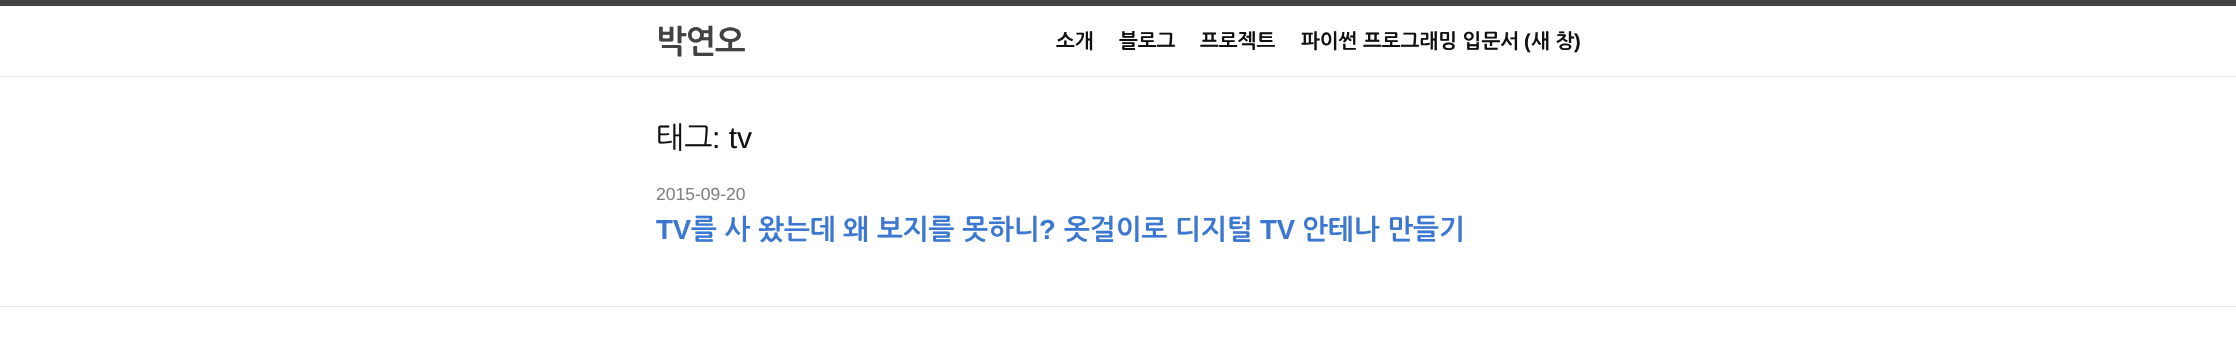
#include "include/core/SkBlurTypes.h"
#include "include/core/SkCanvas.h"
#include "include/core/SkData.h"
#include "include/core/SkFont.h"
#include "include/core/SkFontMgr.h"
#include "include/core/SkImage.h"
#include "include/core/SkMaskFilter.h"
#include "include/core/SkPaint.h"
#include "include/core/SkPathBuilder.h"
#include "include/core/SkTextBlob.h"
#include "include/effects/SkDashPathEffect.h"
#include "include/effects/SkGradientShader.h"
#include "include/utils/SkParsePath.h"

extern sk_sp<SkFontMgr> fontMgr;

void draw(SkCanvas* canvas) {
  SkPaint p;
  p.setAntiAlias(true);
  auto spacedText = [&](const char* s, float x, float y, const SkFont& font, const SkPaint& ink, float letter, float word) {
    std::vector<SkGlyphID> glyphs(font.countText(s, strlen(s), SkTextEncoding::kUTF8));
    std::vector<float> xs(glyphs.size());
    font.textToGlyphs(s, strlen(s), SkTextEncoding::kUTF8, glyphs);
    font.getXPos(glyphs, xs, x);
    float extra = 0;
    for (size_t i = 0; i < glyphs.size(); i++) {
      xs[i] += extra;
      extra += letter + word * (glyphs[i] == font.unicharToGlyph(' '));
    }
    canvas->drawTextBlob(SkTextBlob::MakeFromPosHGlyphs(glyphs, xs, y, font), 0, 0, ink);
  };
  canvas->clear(SK_ColorWHITE);
  p.setColor(SkColorSetRGB(66, 66, 66));
  canvas->drawRect(SkRect::MakeLTRB(0, 0, 2236, 6), p);
  p.setColor(SkColorSetRGB(232, 232, 232));
  canvas->drawRect(SkRect::MakeLTRB(0, 76, 2236, 77), p);
  canvas->drawRect(SkRect::MakeLTRB(0, 306, 2236, 307), p);
  SkFont font1(fontMgr->matchFamilyStyle("NanumGothic", SkFontStyle::Bold()), 32.5f);
  font1.setSubpixel(true);
  p.setColor(SkColorSetRGB(66, 66, 66));
  spacedText("박연오", 656, 53, font1, p, -1, 0);
  SkFont font2(fontMgr->matchFamilyStyle("NanumGothic", SkFontStyle::Bold()), 20);
  font2.setSubpixel(true);
  p.setColor(SkColorSetRGB(17, 17, 17));
  canvas->drawString("소개", 1056, 48, font2, p);
  canvas->drawString("블로그", 1119, 48, font2, p);
  canvas->drawString("프로젝트", 1200, 48, font2, p);
  canvas->drawString("파이썬 프로그래밍 입문서", 1301, 48, font2, p);
  SkFont font3(fontMgr->matchFamilyStyle("Liberation Sans", SkFontStyle::Bold()), 20);
  font3.setSubpixel(true);
  canvas->drawString("(", 1524, 48, font3, p);
  canvas->drawString("새 창", 1531, 48, font2, p);
  canvas->drawString(")", 1574, 48, font3, p);
  SkFont font4(fontMgr->matchFamilyStyle("NanumGothic", SkFontStyle::Normal()), 30);
  font4.setSubpixel(true);
  canvas->drawString("태그", 656, 148, font4, p);
  SkFont font5(fontMgr->matchFamilyStyle("Liberation Sans", SkFontStyle::Normal()), 30);
  font5.setSubpixel(true);
  canvas->drawString(": tv", 712, 148, font5, p);
  SkFont font6(fontMgr->matchFamilyStyle("Liberation Sans", SkFontStyle::Normal()), 17.5f);
  font6.setSubpixel(true);
  p.setColor(SkColorSetRGB(130, 130, 130));
  canvas->drawString("2015-09-20", 656, 200, font6, p);
  SkFont font7(fontMgr->matchFamilyStyle("Liberation Sans", SkFontStyle::Bold()), 27.5f);
  font7.setSubpixel(true);
  p.setColor(SkColorSetRGB(60, 120, 209));
  canvas->drawString("TV", 656, 239, font7, p);
  SkFont font8(fontMgr->matchFamilyStyle("NanumGothic", SkFontStyle::Bold()), 27.5f);
  font8.setSubpixel(true);
  canvas->drawString("를 사 왔는데 왜 보지를 못하니", 691, 239, font8, p);
  canvas->drawString("?", 1039, 239, font7, p);
  canvas->drawString("옷걸이로 디지털", 1064, 239, font8, p);
  canvas->drawString("TV", 1260, 239, font7, p);
  canvas->drawString("안테나 만들기", 1302, 239, font8, p);
}
